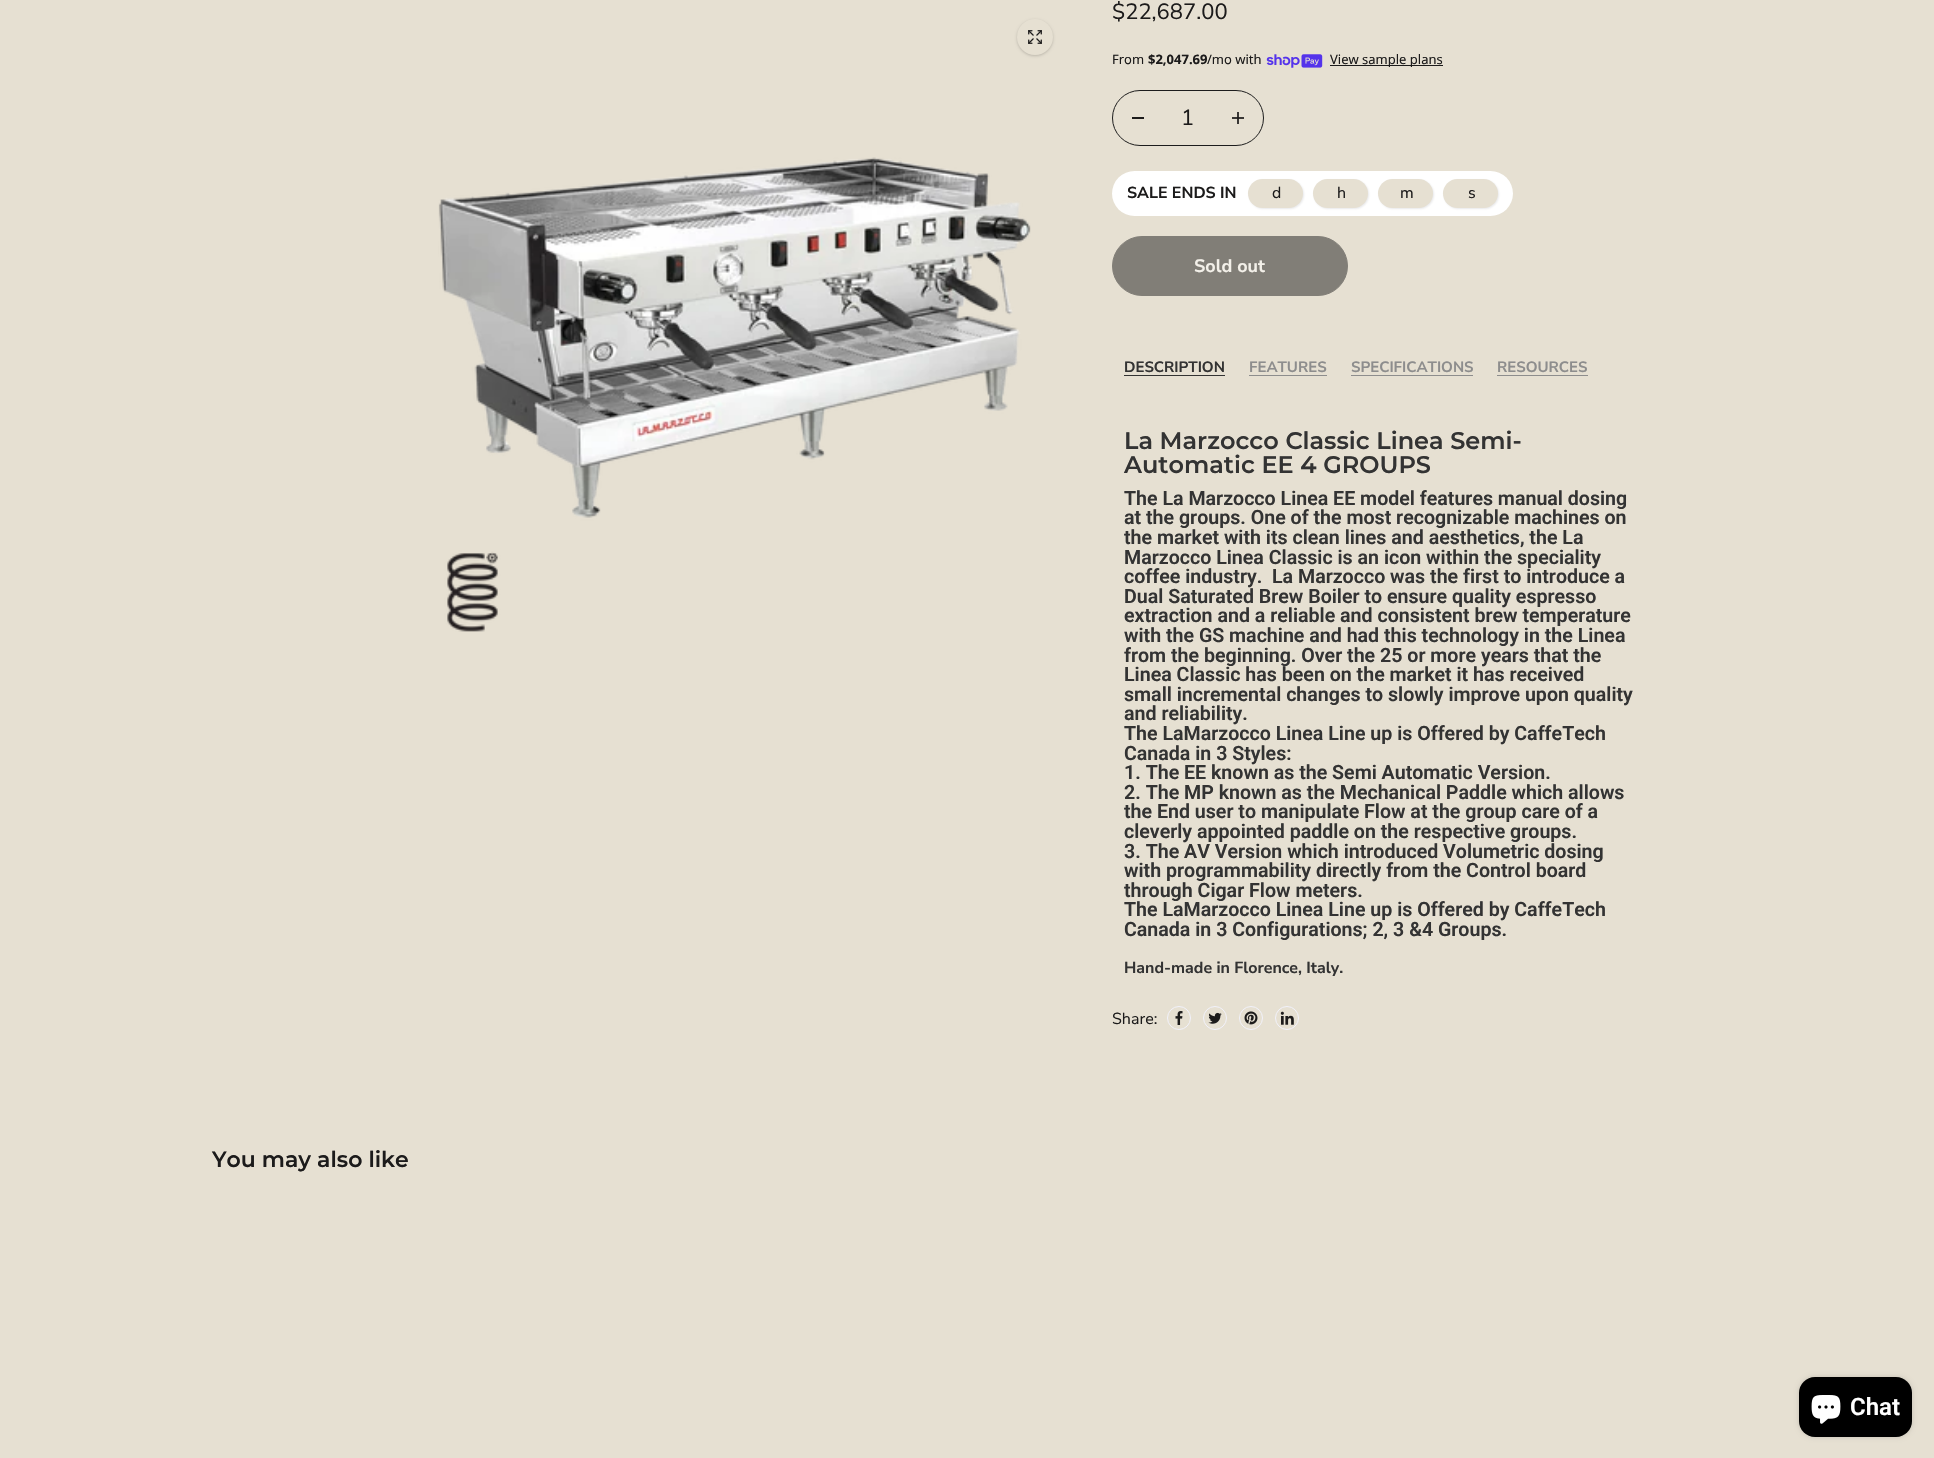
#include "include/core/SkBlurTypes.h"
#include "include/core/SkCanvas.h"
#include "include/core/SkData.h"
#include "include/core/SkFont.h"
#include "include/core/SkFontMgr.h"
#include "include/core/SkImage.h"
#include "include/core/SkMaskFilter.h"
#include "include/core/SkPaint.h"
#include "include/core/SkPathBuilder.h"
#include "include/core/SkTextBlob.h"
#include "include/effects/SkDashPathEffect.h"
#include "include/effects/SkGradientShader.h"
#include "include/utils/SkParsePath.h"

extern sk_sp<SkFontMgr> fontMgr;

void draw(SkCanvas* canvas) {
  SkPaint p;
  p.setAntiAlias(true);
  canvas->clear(SkColorSetRGB(230, 224, 210));
  p.setColor(SkColorSetARGB(48, 0, 0, 0));
  p.setMaskFilter(SkMaskFilter::MakeBlur(kNormal_SkBlurStyle, 1.5f));
  canvas->drawRoundRect(SkRect::MakeLTRB(1017, 20, 1053, 56), 18, 18, p);
  p.setMaskFilter(nullptr);
  p.setColor(SkColorSetRGB(230, 224, 210));
  canvas->drawCircle(1035, 37, 18, p);
  canvas->drawImageRect(SkImages::DeferredFromEncodedData(SkData::MakeFromFileName("images/1.png")), SkRect::MakeLTRB(1028, 30, 1042, 44), SkSamplingOptions());
  canvas->drawImageRect(SkImages::DeferredFromEncodedData(SkData::MakeFromFileName("images/2.png")), SkRect::MakeLTRB(438, 157, 1031, 632), SkSamplingOptions());
  canvas->drawImageRect(SkImages::DeferredFromEncodedData(SkData::MakeFromFileName("images/3.png")), SkRect::MakeLTRB(1266, 54, 1323, 68), SkSamplingOptions());
  p.setColor(SkColorSetRGB(28, 27, 27));
  canvas->drawRect(SkRect::MakeLTRB(1330, 65, 1443, 66), p);
  p.setStyle(SkPaint::kStroke_Style);
  p.setStrokeWidth(1);
  p.setColor(SkColorSetRGB(29, 29, 29));
  canvas->drawRoundRect(SkRect::MakeLTRB(1112.5f, 90.5f, 1263.5f, 145.5f), 27.5f, 27.5f, p);
  p.setStyle(SkPaint::kFill_Style);
  p.setColor(SkColorSetRGB(28, 27, 27));
  canvas->drawRect(SkRect::MakeLTRB(1132, 117, 1144, 119), p);
  canvas->drawImageRect(SkImages::DeferredFromEncodedData(SkData::MakeFromFileName("images/4.png")), SkRect::MakeLTRB(1232, 112, 1244, 124), SkSamplingOptions());
  p.setColor(SK_ColorWHITE);
  canvas->drawRoundRect(SkRect::MakeLTRB(1112, 171, 1513, 216), 22.5f, 22.5f, p);
  p.setColor(SkColorSetARGB(26, 36, 40, 53));
  p.setMaskFilter(SkMaskFilter::MakeBlur(kNormal_SkBlurStyle, 1));
  canvas->drawRoundRect(SkRect::MakeLTRB(1249, 180, 1304, 209), 14.5f, 14.5f, p);
  p.setMaskFilter(nullptr);
  p.setColor(SkColorSetRGB(230, 224, 210));
  canvas->drawRoundRect(SkRect::MakeLTRB(1248, 179, 1303, 208), 14.5f, 14.5f, p);
  p.setColor(SkColorSetARGB(26, 36, 40, 53));
  p.setMaskFilter(SkMaskFilter::MakeBlur(kNormal_SkBlurStyle, 1));
  canvas->drawRoundRect(SkRect::MakeLTRB(1314, 180, 1369, 209), 14.5f, 14.5f, p);
  p.setMaskFilter(nullptr);
  p.setColor(SkColorSetRGB(230, 224, 210));
  canvas->drawRoundRect(SkRect::MakeLTRB(1313, 179, 1368, 208), 14.5f, 14.5f, p);
  p.setColor(SkColorSetARGB(26, 36, 40, 53));
  p.setMaskFilter(SkMaskFilter::MakeBlur(kNormal_SkBlurStyle, 1));
  canvas->drawRoundRect(SkRect::MakeLTRB(1379, 180, 1434, 209), 14.5f, 14.5f, p);
  p.setMaskFilter(nullptr);
  p.setColor(SkColorSetRGB(230, 224, 210));
  canvas->drawRoundRect(SkRect::MakeLTRB(1378, 179, 1433, 208), 14.5f, 14.5f, p);
  p.setColor(SkColorSetARGB(26, 36, 40, 53));
  p.setMaskFilter(SkMaskFilter::MakeBlur(kNormal_SkBlurStyle, 1));
  canvas->drawRoundRect(SkRect::MakeLTRB(1444, 180, 1499, 209), 14.5f, 14.5f, p);
  p.setMaskFilter(nullptr);
  p.setColor(SkColorSetRGB(230, 224, 210));
  canvas->drawRoundRect(SkRect::MakeLTRB(1443, 179, 1498, 208), 14.5f, 14.5f, p);
  p.setColor(SkColorSetRGB(129, 126, 119));
  canvas->drawRoundRect(SkRect::MakeLTRB(1112.5f, 236.5f, 1347.5f, 295.5f), 29.5f, 29.5f, p);
  p.setStyle(SkPaint::kStroke_Style);
  canvas->drawRoundRect(SkRect::MakeLTRB(1112.5f, 236.5f, 1347.5f, 295.5f), 29.5f, 29.5f, p);
  p.setStyle(SkPaint::kFill_Style);
  p.setColor(SkColorSetRGB(51, 51, 51));
  canvas->drawRect(SkRect::MakeLTRB(1124, 375, 1225, 376), p);
  p.setColor(SkColorSetRGB(141, 141, 141));
  canvas->drawRect(SkRect::MakeLTRB(1249, 375, 1327, 376), p);
  canvas->drawRect(SkRect::MakeLTRB(1351, 375, 1473, 376), p);
  canvas->drawRect(SkRect::MakeLTRB(1497, 375, 1588, 376), p);
  p.setStyle(SkPaint::kStroke_Style);
  p.setColor(SkColorSetRGB(242, 242, 251));
  canvas->drawCircle(1179, 1018, 11.5f, p);
  canvas->drawImageRect(SkImages::DeferredFromEncodedData(SkData::MakeFromFileName("images/5.png")), SkRect::MakeLTRB(1175, 1011, 1183, 1025), SkSamplingOptions());
  canvas->drawCircle(1215, 1018, 11.5f, p);
  canvas->drawImageRect(SkImages::DeferredFromEncodedData(SkData::MakeFromFileName("images/6.png")), SkRect::MakeLTRB(1208, 1012, 1222, 1024), SkSamplingOptions());
  canvas->drawCircle(1251, 1018, 11.5f, p);
  canvas->drawImageRect(SkImages::DeferredFromEncodedData(SkData::MakeFromFileName("images/7.png")), SkRect::MakeLTRB(1244, 1011, 1258, 1025), SkSamplingOptions());
  canvas->drawCircle(1287, 1018, 11.5f, p);
  canvas->drawImageRect(SkImages::DeferredFromEncodedData(SkData::MakeFromFileName("images/8.png")), SkRect::MakeLTRB(1280, 1011, 1294, 1025), SkSamplingOptions());
  p.setStyle(SkPaint::kFill_Style);
  p.setColor(SkColorSetARGB(38, 0, 0, 0));
  p.setMaskFilter(SkMaskFilter::MakeBlur(kNormal_SkBlurStyle, 2.5f));
  canvas->drawRoundRect(SkRect::MakeLTRB(1799, 1377, 1912, 1437), 16, 16, p);
  p.setMaskFilter(nullptr);
  p.setColor(SK_ColorBLACK);
  canvas->drawRoundRect(SkRect::MakeLTRB(1799, 1377, 1912, 1437), 16, 16, p);
  canvas->drawImageRect(SkImages::DeferredFromEncodedData(SkData::MakeFromFileName("images/9.png")), SkRect::MakeLTRB(1811, 1395, 1841, 1424), SkSamplingOptions());
  SkFont font1(fontMgr->matchFamilyStyle("Nunito Sans", SkFontStyle::Normal()), 22);
  font1.setSubpixel(true);
  p.setColor(SkColorSetRGB(28, 27, 27));
  canvas->drawString("$22,687.00", 1112, 19, font1, p);
  SkFont font2(fontMgr->matchFamilyStyle("Noto Sans", SkFontStyle::Normal()), 13);
  font2.setSubpixel(true);
  canvas->drawString("From", 1112, 64, font2, p);
  SkFont font3(fontMgr->matchFamilyStyle("Noto Sans", SkFontStyle::Bold()), 13);
  font3.setSubpixel(true);
  canvas->drawString("$2,047.69", 1148, 64, font3, p);
  canvas->drawString("/mo with", 1207, 64, font2, p);
  canvas->drawString("View sample plans", 1330, 64, font2, p);
  canvas->drawString("1", 1181, 125, font1, p);
  SkFont font4(fontMgr->matchFamilyStyle("Nunito Sans", SkFontStyle::Bold()), 16);
  font4.setSubpixel(true);
  canvas->drawString("SALE ENDS IN", 1127, 198, font4, p);
  SkFont font5(fontMgr->matchFamilyStyle("Nunito Sans", SkFontStyle::Normal()), 16);
  font5.setSubpixel(true);
  canvas->drawString("d", 1272, 198, font5, p);
  canvas->drawString("h", 1337, 198, font5, p);
  canvas->drawString("m", 1400, 198, font5, p);
  canvas->drawString("s", 1468, 198, font5, p);
  SkFont font6(fontMgr->matchFamilyStyle("Nunito Sans", SkFontStyle::Bold()), 18);
  font6.setSubpixel(true);
  p.setColor(SkColorSetRGB(243, 240, 233));
  canvas->drawString("Sold out", 1194, 272, font6, p);
  SkFont font7(fontMgr->matchFamilyStyle("Nunito Sans", SkFontStyle::Bold()), 15);
  font7.setSubpixel(true);
  p.setColor(SkColorSetRGB(51, 51, 51));
  canvas->drawString("DESCRIPTION", 1124, 372, font7, p);
  p.setColor(SkColorSetRGB(141, 141, 141));
  canvas->drawString("FEATURES", 1249, 372, font7, p);
  canvas->drawString("SPECIFICATIONS", 1351, 372, font7, p);
  canvas->drawString("RESOURCES", 1497, 372, font7, p);
  SkFont font8(fontMgr->matchFamilyStyle("Montserrat", SkFontStyle(600, SkFontStyle::kNormal_Width, SkFontStyle::kUpright_Slant)), 24);
  font8.setSubpixel(true);
  p.setColor(SkColorSetRGB(51, 51, 51));
  canvas->drawString("La Marzocco Classic Linea Semi-", 1124, 449, font8, p);
  canvas->drawString("Automatic EE 4 GROUPS", 1124, 473, font8, p);
  SkFont font9(fontMgr->matchFamilyStyle("Roboto", SkFontStyle(600, SkFontStyle::kNormal_Width, SkFontStyle::kUpright_Slant)), 19.6f);
  font9.setSubpixel(true);
  canvas->drawString("The La Marzocco Linea EE model features manual dosing", 1124, 505, font9, p);
  canvas->drawString("at the groups. One of the most recognizable machines on", 1124, 524, font9, p);
  canvas->drawString("the market with its clean lines and aesthetics, the La", 1124, 544, font9, p);
  canvas->drawString("Marzocco Linea Classic is an icon within the speciality", 1124, 564, font9, p);
  canvas->drawString("coffee industry.  La Marzocco was the first to introduce a", 1124, 583, font9, p);
  canvas->drawString("Dual Saturated Brew Boiler to ensure quality espresso", 1124, 603, font9, p);
  canvas->drawString("extraction and a reliable and consistent brew temperature", 1124, 622, font9, p);
  canvas->drawString("with the GS machine and had this technology in the Linea", 1124, 642, font9, p);
  canvas->drawString("from the beginning. Over the 25 or more years that the", 1124, 662, font9, p);
  canvas->drawString("Linea Classic has been on the market it has received", 1124, 681, font9, p);
  canvas->drawString("small incremental changes to slowly improve upon quality", 1124, 701, font9, p);
  canvas->drawString("and reliability.", 1124, 720, font9, p);
  canvas->drawString("The LaMarzocco Linea Line up is Offered by CaffeTech", 1124, 740, font9, p);
  canvas->drawString("Canada in 3 Styles:", 1124, 760, font9, p);
  canvas->drawString("1. The EE known as the Semi Automatic Version.", 1124, 779, font9, p);
  canvas->drawString("2. The MP known as the Mechanical Paddle which allows", 1124, 799, font9, p);
  canvas->drawString("the End user to manipulate Flow at the group care of a", 1124, 818, font9, p);
  canvas->drawString("cleverly appointed paddle on the respective groups.", 1124, 838, font9, p);
  canvas->drawString("3. The AV Version which introduced Volumetric dosing", 1124, 858, font9, p);
  canvas->drawString("with programmability directly from the Control board", 1124, 877, font9, p);
  canvas->drawString("through Cigar Flow meters.", 1124, 897, font9, p);
  canvas->drawString("The LaMarzocco Linea Line up is Offered by CaffeTech", 1124, 916, font9, p);
  canvas->drawString("Canada in 3 Configurations; 2, 3 &4 Groups.", 1124, 936, font9, p);
  canvas->drawString("Hand-made in Florence, Italy.", 1124, 973, font4, p);
  p.setColor(SkColorSetRGB(28, 27, 27));
  canvas->drawString("Share:", 1112, 1024, font5, p);
  SkFont font10(fontMgr->matchFamilyStyle("Montserrat", SkFontStyle(600, SkFontStyle::kNormal_Width, SkFontStyle::kUpright_Slant)), 22);
  font10.setSubpixel(true);
  canvas->drawString("You may also like", 212, 1167, font10, p);
  SkFont font11(fontMgr->matchFamilyStyle("Roboto", SkFontStyle(600, SkFontStyle::kNormal_Width, SkFontStyle::kUpright_Slant)), 24);
  font11.setSubpixel(true);
  p.setColor(SK_ColorWHITE);
  canvas->drawString("Chat", 1850, 1415, font11, p);
}
